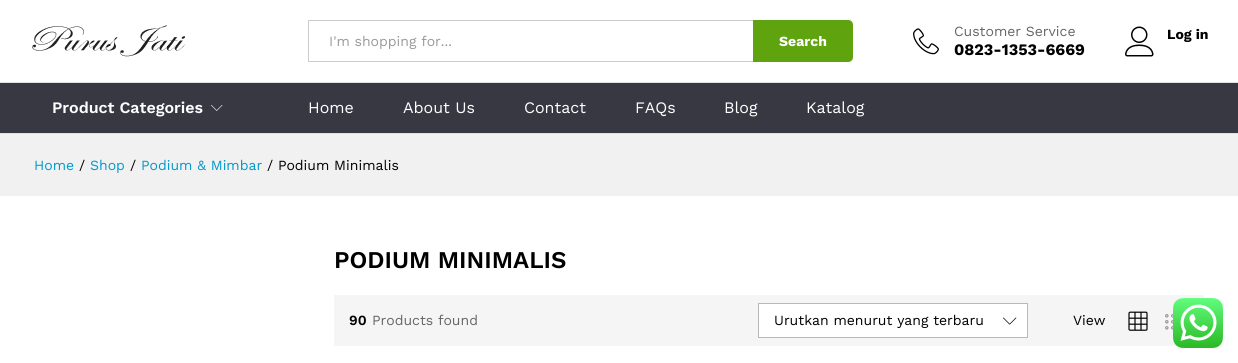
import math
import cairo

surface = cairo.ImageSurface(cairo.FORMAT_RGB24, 1238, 363)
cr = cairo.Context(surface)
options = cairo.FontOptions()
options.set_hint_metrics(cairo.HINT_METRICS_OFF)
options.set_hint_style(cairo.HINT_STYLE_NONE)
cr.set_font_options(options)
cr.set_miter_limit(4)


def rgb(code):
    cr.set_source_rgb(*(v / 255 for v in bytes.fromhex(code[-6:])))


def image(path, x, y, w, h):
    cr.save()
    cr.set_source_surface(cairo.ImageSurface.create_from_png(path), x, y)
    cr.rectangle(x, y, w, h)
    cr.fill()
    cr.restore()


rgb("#ffffff")
cr.paint()
image("img/1.png", 32, 25, 153, 32)
for x, y, w, h, color in [
    (308, 20, 1, 42, "#cccccc"),
    (309, 20, 444, 1, "#cccccc"),
    (309, 61, 444, 1, "#cccccc"),
]:
    rgb(color)
    cr.rectangle(x, y, w, h)
    cr.fill()
rgb("#5fa30f")
cr.new_path()
cr.move_to(753, 20)
cr.line_to(848, 20)
cr.curve_to(851, 20, 853, 22, 853, 25)
cr.line_to(853, 57)
cr.curve_to(853, 60, 851, 62, 848, 62)
cr.line_to(753, 62)
cr.close_path()
cr.fill()
image("img/2.png", 913, 28, 26, 27)
image("img/3.png", 1125, 26, 29, 31)
for x, y, w, h, color in [
    (0, 83, 1238, 50, "#373842"),
    (0, 82, 1238, 1, "#e1e1e1"),
    (0, 133, 1238, 1, "#e1e1e1"),
]:
    rgb(color)
    cr.rectangle(x, y, w, h)
    cr.fill()
image("img/4.png", 211, 105, 12, 6)
rgb("#f1f1f1")
cr.rectangle(0, 134, 1238, 62)
cr.fill()
rgb("#f5f5f5")
cr.rectangle(334, 295, 870, 51)
cr.fill()
rgb("#ffffff")
cr.rectangle(758.5, 303.5, 269, 34)
cr.fill_preserve()
rgb("#b8b8b8")
cr.set_line_width(1)
cr.stroke()
image("img/5.png", 1003, 317, 14, 8)
image("img/6.png", 1128, 311, 20, 20)
image("img/7.png", 1165, 314, 8, 16)
image("img/8.png", 1173, 298, 50, 50)
cr.select_font_face("Work Sans")
cr.set_font_size(14)
rgb("#999999")
cr.move_to(329, 46)
cr.show_text("I'm shopping for...")
cr.select_font_face("Work Sans", cairo.FONT_SLANT_NORMAL, cairo.FONT_WEIGHT_BOLD)
rgb("#ffffff")
cr.move_to(779, 46)
cr.show_text("Search")
cr.select_font_face("Work Sans")
rgb("#666666")
cr.move_to(954, 36)
cr.show_text("Customer Service")
cr.select_font_face("Work Sans", cairo.FONT_SLANT_NORMAL, cairo.FONT_WEIGHT_BOLD)
cr.set_font_size(16)
rgb("#000000")
cr.move_to(954, 55)
cr.show_text("0823-1353-6669")
cr.set_font_size(14)
cr.move_to(1167, 39)
cr.show_text("Log in")
cr.select_font_face("Work Sans SemiBold")
cr.set_font_size(16)
rgb("#ffffff")
cr.move_to(52, 113)
cr.show_text("Product Categories")
cr.select_font_face("Work Sans")
for x, y, s in [
    (308, 113, "Home"),
    (403, 113, "About Us"),
    (524, 113, "Contact"),
    (635, 113, "FAQs"),
    (724, 113, "Blog"),
    (806, 113, "Katalog"),
]:
    cr.move_to(x, y)
    cr.show_text(s)
cr.set_font_size(14)
rgb("#0099cc")
cr.move_to(34, 170)
cr.show_text("Home")
rgb("#000000")
cr.move_to(79, 170)
cr.show_text("/")
rgb("#0099cc")
cr.move_to(90, 170)
cr.show_text("Shop")
rgb("#000000")
cr.move_to(130, 170)
cr.show_text("/")
rgb("#0099cc")
cr.move_to(141, 170)
cr.show_text("Podium & Mimbar")
rgb("#000000")
cr.move_to(267, 170)
cr.show_text("/ Podium Minimalis")
cr.select_font_face("Work Sans SemiBold")
cr.set_font_size(24)
cr.move_to(334, 268)
cr.show_text("PODIUM MINIMALIS")
cr.set_font_size(14)
cr.move_to(349, 325)
cr.show_text("90")
cr.select_font_face("Work Sans")
rgb("#666666")
cr.move_to(372, 325)
cr.show_text("Products found")
rgb("#000000")
cr.move_to(774, 325)
cr.show_text("Urutkan menurut yang terbaru")
cr.move_to(1073, 325)
cr.show_text("View")
surface.write_to_png("page.png")
